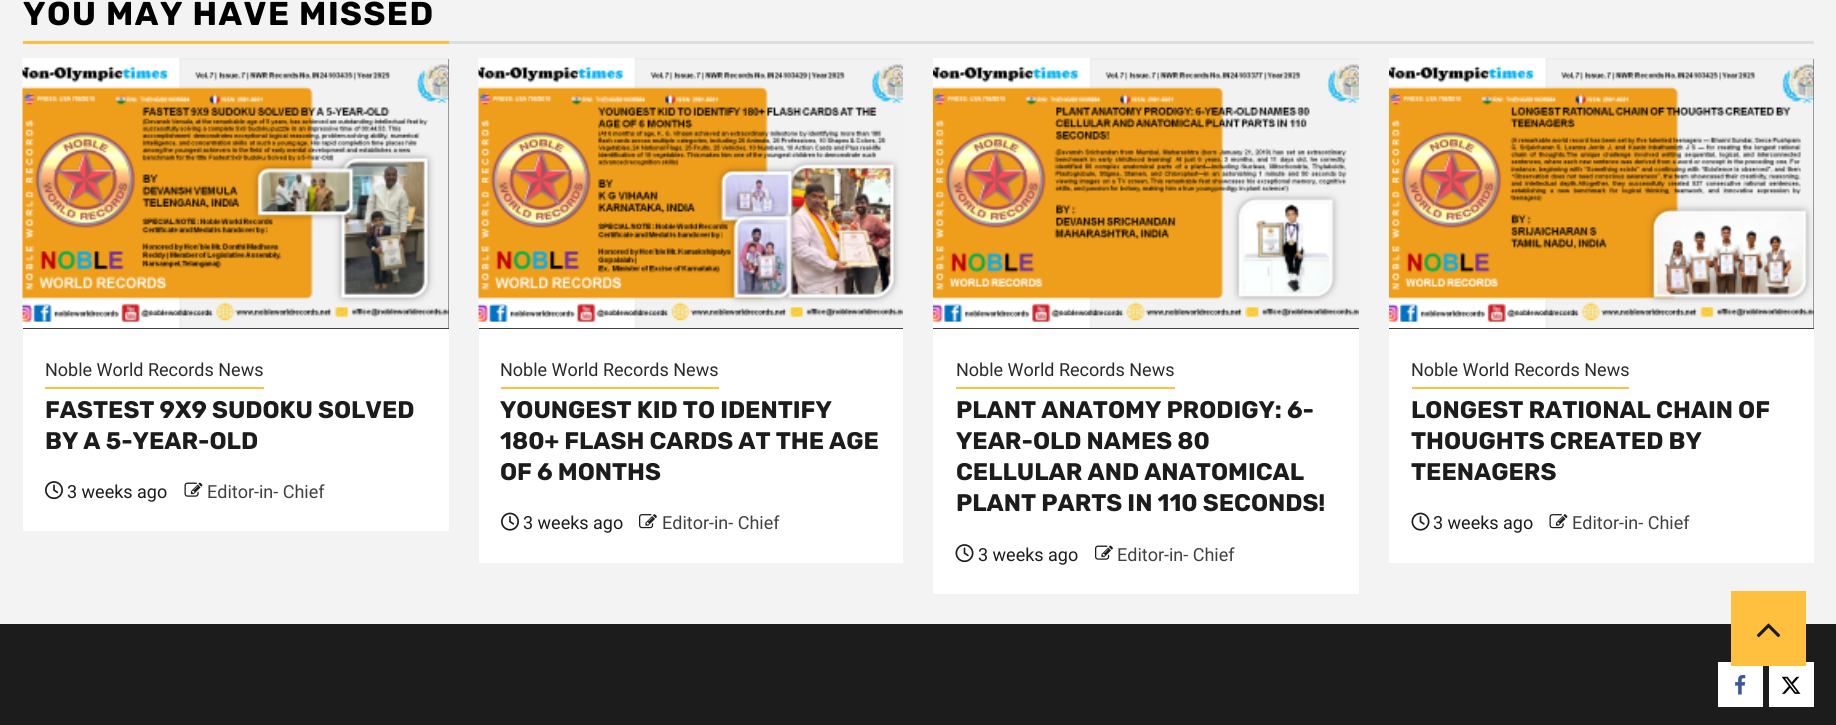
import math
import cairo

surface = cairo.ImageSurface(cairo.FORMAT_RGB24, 1836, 725)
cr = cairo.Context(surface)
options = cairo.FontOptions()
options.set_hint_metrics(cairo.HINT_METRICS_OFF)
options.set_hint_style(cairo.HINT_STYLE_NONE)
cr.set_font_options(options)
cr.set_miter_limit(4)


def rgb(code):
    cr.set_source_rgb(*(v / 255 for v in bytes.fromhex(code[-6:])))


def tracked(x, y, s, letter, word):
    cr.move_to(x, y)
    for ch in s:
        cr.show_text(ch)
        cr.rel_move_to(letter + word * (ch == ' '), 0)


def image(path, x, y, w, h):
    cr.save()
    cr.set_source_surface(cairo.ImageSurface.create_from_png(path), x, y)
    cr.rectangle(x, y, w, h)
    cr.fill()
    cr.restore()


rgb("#f3f3f3")
cr.paint()
for x, y, w, h, color in [
    (23, 41, 426, 3, "#ffbf3f"),
    (449, 41, 1365, 3, "#dedede"),
    (23, 329, 426, 202, "#ffffff"),
    (23, 59, 426, 270, "#404040"),
]:
    rgb(color)
    cr.rectangle(x, y, w, h)
    cr.fill()
image("img/1.png", 22, 58, 427, 270)
rgb("#ffbf3f")
cr.rectangle(45, 387, 219, 2)
cr.fill()
image("img/2.png", 45, 481, 18, 19)
image("img/3.png", 184, 482, 19, 15)
rgb("#ffffff")
cr.rectangle(479, 329, 424, 234)
cr.fill()
rgb("#404040")
cr.rectangle(479, 328, 424, 1)
cr.fill()
image("img/4.png", 478, 58, 425, 270)
rgb("#ffbf3f")
cr.rectangle(501, 387, 218, 2)
cr.fill()
image("img/5.png", 501, 512, 18, 19)
image("img/6.png", 639, 514, 18, 15)
rgb("#ffffff")
cr.rectangle(933, 329, 426, 265)
cr.fill()
rgb("#404040")
cr.rectangle(933, 328, 426, 1)
cr.fill()
image("img/7.png", 933, 58, 426, 270)
rgb("#ffbf3f")
cr.rectangle(956, 387, 219, 2)
cr.fill()
image("img/8.png", 955, 544, 19, 19)
image("img/9.png", 1095, 545, 18, 15)
rgb("#ffffff")
cr.rectangle(1389, 329, 425, 234)
cr.fill()
rgb("#404040")
cr.rectangle(1389, 59, 425, 270)
cr.fill()
image("img/10.png", 1389, 58, 425, 270)
rgb("#ffbf3f")
cr.rectangle(1412, 387, 217, 2)
cr.fill()
image("img/11.png", 1411, 512, 19, 19)
image("img/12.png", 1549, 514, 19, 15)
rgb("#1c1c1c")
cr.rectangle(0, 624, 1836, 101)
cr.fill()
rgb("#ffffff")
cr.rectangle(1718, 662, 45, 45)
cr.fill()
image("img/13.png", 1735, 675, 11, 20)
cr.rectangle(1769, 662, 45, 45)
cr.fill()
image("img/14.png", 1781, 676, 20, 18)
rgb("#ffbf3f")
cr.rectangle(1731, 591, 75, 75)
cr.fill()
image("img/15.png", 1756, 623, 25, 15)
cr.select_font_face("Rubik", cairo.FONT_SLANT_NORMAL, cairo.FONT_WEIGHT_BOLD)
cr.set_font_size(33)
rgb("#000000")
tracked(23, 25, "YOU MAY HAVE MISSED", 1.5, 0)
cr.select_font_face("Roboto")
cr.set_font_size(18)
rgb("#2b2b2b")
cr.move_to(45, 376)
cr.show_text("Noble World Records News")
cr.select_font_face("Rubik", cairo.FONT_SLANT_NORMAL, cairo.FONT_WEIGHT_BOLD)
cr.set_font_size(24)
rgb("#1c1c1c")
cr.move_to(45, 418)
cr.show_text("FASTEST 9X9 SUDOKU SOLVED")
cr.move_to(45, 449)
cr.show_text("BY A 5-YEAR-OLD")
cr.select_font_face("Roboto")
cr.set_font_size(18)
cr.move_to(67, 498)
cr.show_text("3 weeks ago")
rgb("#404040")
cr.move_to(207, 498)
cr.show_text("Editor-in- Chief")
rgb("#2b2b2b")
cr.move_to(500, 376)
cr.show_text("Noble World Records News")
cr.select_font_face("Rubik", cairo.FONT_SLANT_NORMAL, cairo.FONT_WEIGHT_BOLD)
cr.set_font_size(24)
rgb("#1c1c1c")
for x, y, s in [
    (500, 418, "YOUNGEST KID TO IDENTIFY"),
    (500, 449, "180+ FLASH CARDS AT THE AGE"),
    (500, 480, "OF 6 MONTHS"),
]:
    cr.move_to(x, y)
    cr.show_text(s)
cr.select_font_face("Roboto")
cr.set_font_size(18)
cr.move_to(523, 529)
cr.show_text("3 weeks ago")
rgb("#404040")
cr.move_to(662, 529)
cr.show_text("Editor-in- Chief")
rgb("#2b2b2b")
cr.move_to(956, 376)
cr.show_text("Noble World Records News")
cr.select_font_face("Rubik", cairo.FONT_SLANT_NORMAL, cairo.FONT_WEIGHT_BOLD)
cr.set_font_size(24)
rgb("#1c1c1c")
for x, y, s in [
    (956, 418, "PLANT ANATOMY PRODIGY: 6-"),
    (956, 449, "YEAR-OLD NAMES 80"),
    (956, 480, "CELLULAR AND ANATOMICAL"),
    (956, 511, "PLANT PARTS IN 110 SECONDS!"),
]:
    cr.move_to(x, y)
    cr.show_text(s)
cr.select_font_face("Roboto")
cr.set_font_size(18)
cr.move_to(978, 561)
cr.show_text("3 weeks ago")
rgb("#404040")
cr.move_to(1117, 561)
cr.show_text("Editor-in- Chief")
rgb("#2b2b2b")
cr.move_to(1411, 376)
cr.show_text("Noble World Records News")
cr.select_font_face("Rubik", cairo.FONT_SLANT_NORMAL, cairo.FONT_WEIGHT_BOLD)
cr.set_font_size(24)
rgb("#1c1c1c")
for x, y, s in [
    (1411, 418, "LONGEST RATIONAL CHAIN OF"),
    (1411, 449, "THOUGHTS CREATED BY"),
    (1411, 480, "TEENAGERS"),
]:
    cr.move_to(x, y)
    cr.show_text(s)
cr.select_font_face("Roboto")
cr.set_font_size(18)
cr.move_to(1433, 529)
cr.show_text("3 weeks ago")
rgb("#404040")
cr.move_to(1572, 529)
cr.show_text("Editor-in- Chief")
surface.write_to_png("page.png")
